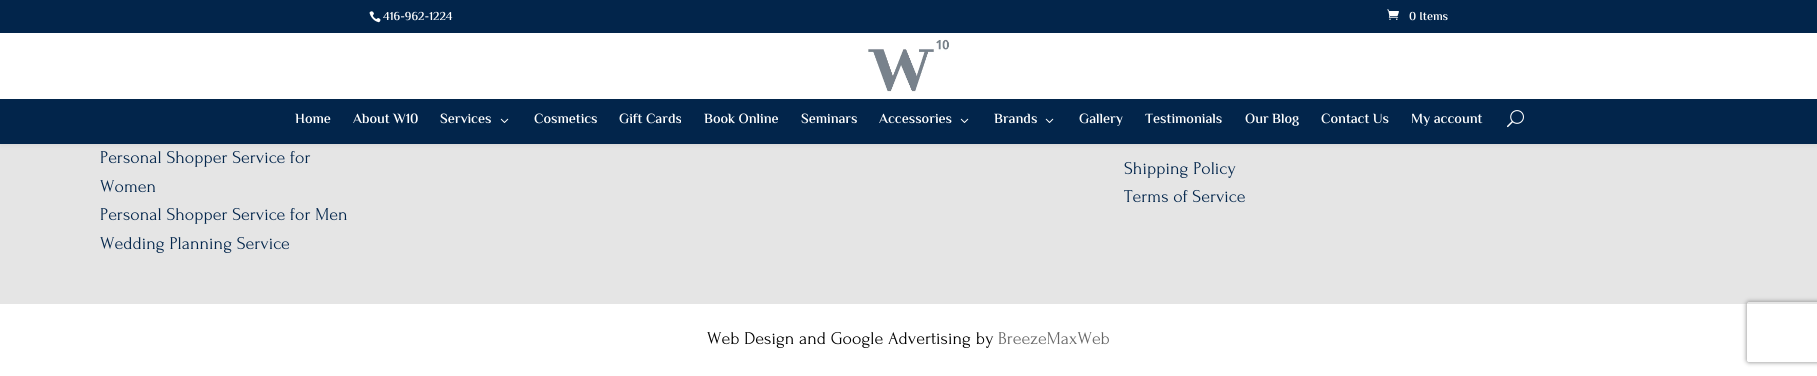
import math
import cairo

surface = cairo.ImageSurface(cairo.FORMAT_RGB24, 1817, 376)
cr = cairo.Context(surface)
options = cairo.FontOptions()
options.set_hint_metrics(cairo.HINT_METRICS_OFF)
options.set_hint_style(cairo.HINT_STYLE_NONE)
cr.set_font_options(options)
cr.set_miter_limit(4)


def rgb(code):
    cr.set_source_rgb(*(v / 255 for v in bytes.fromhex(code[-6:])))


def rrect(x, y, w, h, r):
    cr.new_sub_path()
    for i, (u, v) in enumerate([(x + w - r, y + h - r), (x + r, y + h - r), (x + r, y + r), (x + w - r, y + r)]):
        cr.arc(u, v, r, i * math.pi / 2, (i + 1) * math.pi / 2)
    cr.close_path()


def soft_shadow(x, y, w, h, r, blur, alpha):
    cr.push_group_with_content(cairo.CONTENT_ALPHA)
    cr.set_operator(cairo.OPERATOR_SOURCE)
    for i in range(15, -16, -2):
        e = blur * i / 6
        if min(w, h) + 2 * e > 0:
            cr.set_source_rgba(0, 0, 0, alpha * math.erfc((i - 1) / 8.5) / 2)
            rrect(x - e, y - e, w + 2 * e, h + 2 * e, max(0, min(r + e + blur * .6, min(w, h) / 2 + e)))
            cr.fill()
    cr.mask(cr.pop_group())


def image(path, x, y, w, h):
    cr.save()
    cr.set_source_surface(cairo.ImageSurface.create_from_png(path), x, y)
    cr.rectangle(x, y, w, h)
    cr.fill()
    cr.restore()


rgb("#ffffff")
cr.paint()
rgb("#e5e5e5")
cr.rectangle(0, 144, 1817, 160)
cr.fill()
rgb("#000000")
soft_shadow(0, 33, 1817, 111, 0, 3.5, 0.1)
rgb("#02254b")
cr.rectangle(0, 0, 1817, 33)
cr.fill()
image("img/1.png", 369, 11, 12, 12)
image("img/2.png", 1387, 9, 12, 11)
rgb("#ffffff")
cr.rectangle(0, 33, 1817, 66)
cr.fill()
image("img/3.png", 868, 39, 81, 53)
rgb("#02254b")
cr.rectangle(0, 99, 1817, 45)
cr.fill()
image("img/4.png", 500, 118, 9, 5)
image("img/4.png", 960, 118, 9, 5)
image("img/4.png", 1045, 118, 9, 5)
image("img/5.png", 1507, 110, 17, 18)
cr.save()
cr.set_fill_rule(cairo.FILL_RULE_EVEN_ODD)
cr.new_path()
cr.move_to(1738, 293)
cr.line_to(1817, 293)
cr.line_to(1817, 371)
cr.line_to(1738, 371)
cr.close_path()
cr.move_to(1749, 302)
cr.line_to(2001, 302)
cr.curve_to(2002, 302, 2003, 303, 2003, 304)
cr.line_to(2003, 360)
cr.curve_to(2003, 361, 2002, 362, 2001, 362)
cr.line_to(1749, 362)
cr.curve_to(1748, 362, 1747, 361, 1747, 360)
cr.line_to(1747, 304)
cr.curve_to(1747, 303, 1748, 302, 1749, 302)
cr.close_path()
cr.clip()
rgb("#808080")
soft_shadow(1747, 302, 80, 60, 2, 2.5, 1)
cr.restore()
cr.select_font_face("El Messiri SemiBold")
cr.set_font_size(12)
rgb("#ffffff")
cr.move_to(383, 20)
cr.show_text("416-962-1224")
cr.move_to(1409, 20)
cr.show_text("0 Items")
cr.set_font_size(14)
for x, y, s in [
    (295, 123, "Home"),
    (353, 123, "About W10"),
    (440, 123, "Services"),
    (534, 123, "Cosmetics"),
    (619, 123, "Gift Cards"),
    (704, 123, "Book Online"),
    (801, 123, "Seminars"),
    (879, 123, "Accessories"),
    (994, 123, "Brands"),
    (1079, 123, "Gallery"),
    (1145, 123, "Testimonials"),
    (1245, 123, "Our Blog"),
    (1321, 123, "Contact Us"),
    (1411, 123, "My account"),
]:
    cr.move_to(x, y)
    cr.show_text(s)
cr.select_font_face("Forum")
cr.set_font_size(18)
rgb("#02254b")
for x, y, s in [
    (100, 163, "Personal Shopper Service for"),
    (100, 192, "Women"),
    (100, 220, "Personal Shopper Service for Men"),
    (100, 249, "Wedding Planning Service"),
    (1124, 174, "Shipping Policy"),
    (1124, 202, "Terms of Service"),
]:
    cr.move_to(x, y)
    cr.show_text(s)
rgb("#000000")
cr.move_to(707, 344)
cr.show_text("Web Design and Google Advertising by")
rgb("#666666")
cr.move_to(998, 344)
cr.show_text("BreezeMaxWeb")
surface.write_to_png("page.png")
